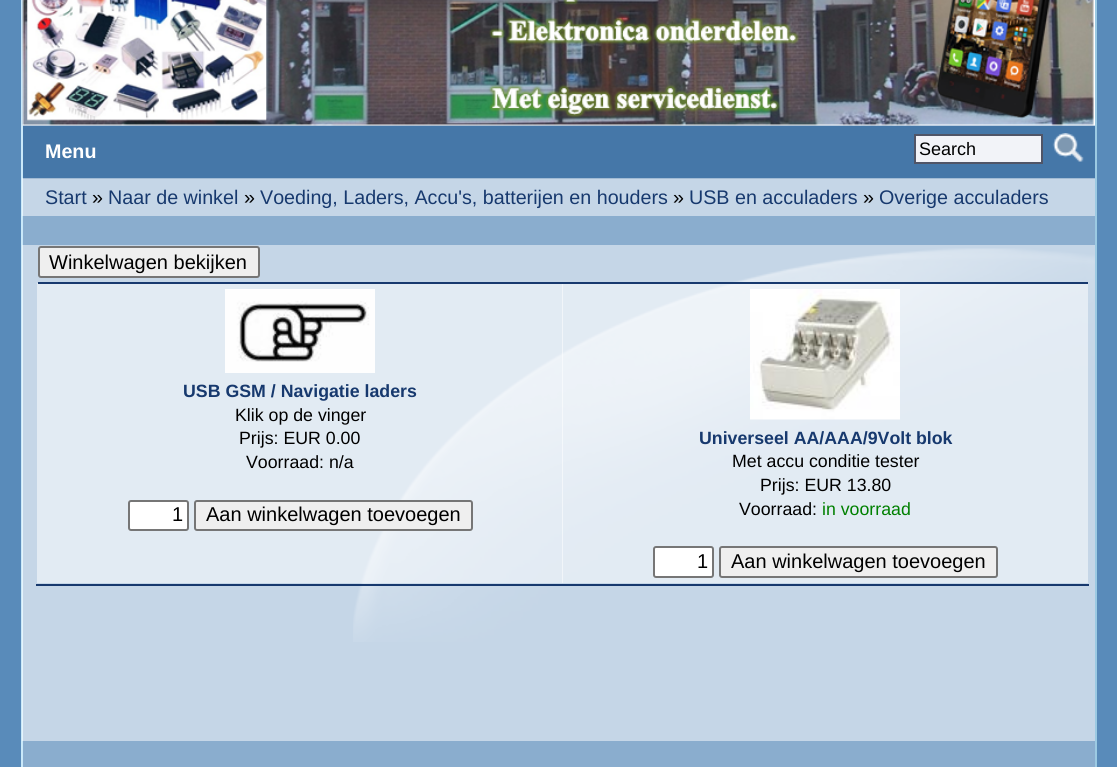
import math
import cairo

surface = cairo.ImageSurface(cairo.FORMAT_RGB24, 1117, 767)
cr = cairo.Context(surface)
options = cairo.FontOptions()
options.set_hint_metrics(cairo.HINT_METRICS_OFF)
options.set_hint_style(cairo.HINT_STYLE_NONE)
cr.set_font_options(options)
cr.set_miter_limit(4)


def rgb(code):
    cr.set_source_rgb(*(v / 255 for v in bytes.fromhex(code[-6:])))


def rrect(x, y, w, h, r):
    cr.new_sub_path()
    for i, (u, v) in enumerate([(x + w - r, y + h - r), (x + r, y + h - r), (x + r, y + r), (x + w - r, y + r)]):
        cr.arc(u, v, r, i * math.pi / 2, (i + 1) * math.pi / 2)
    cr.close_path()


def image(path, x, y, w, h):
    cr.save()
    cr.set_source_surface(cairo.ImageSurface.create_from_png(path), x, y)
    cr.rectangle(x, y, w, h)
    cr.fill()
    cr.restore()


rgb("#598bba")
cr.paint()
for x, y, w, h, color in [
    (23, 125, 1072, 642, "#8aadce"),
    (23, 245, 1072, 496, "#c5d6e7"),
    (23, 179, 1072, 37, "#c5d6e7"),
    (1095, 0, 2, 767, "#9ccae3"),
    (21, 0, 2, 767, "#c9e8f9"),
    (22, 245, 1, 496, "#e4f4fc"),
    (22, 178, 1, 38, "#e4f4fc"),
]:
    rgb(color)
    cr.rectangle(x, y, w, h)
    cr.fill()
image("img/1.png", 22, 0, 1, 5)
image("img/2.png", 22, 0, 1073, 126)
rgb("#4577a8")
cr.rectangle(23, 126, 1072, 52)
cr.fill()
rgb("#a2bbd4")
cr.rectangle(23, 178, 1072, 1)
cr.fill()
rgb("#f2f3f8")
cr.rectangle(915, 135, 127, 28)
cr.fill_preserve()
rgb("#505567")
cr.stroke()
image("img/3.png", 1052, 133, 32, 29)
image("img/4.png", 353, 248, 742, 394)
rgb("#efefef")
rrect(39, 247, 220, 30, 2)
cr.fill_preserve()
rgb("#767676")
cr.stroke()
cr.set_source_rgba(1, 1, 1, 0.5)
cr.rectangle(37, 283, 526, 300)
cr.fill()
rgb("#17396e")
cr.rectangle(38, 282, 1050, 2)
cr.fill()
image("img/5.png", 225, 289, 150, 84)
rgb("#ffffff")
rrect(129, 501, 59, 29, 2)
cr.fill_preserve()
rgb("#767676")
cr.stroke()
rgb("#efefef")
rrect(195, 501, 277, 29, 2)
cr.fill_preserve()
rgb("#767676")
cr.stroke()
cr.set_source_rgba(1, 1, 1, 0.5)
cr.rectangle(562, 284, 526, 299)
cr.fill()
rgb("#17396e")
cr.rectangle(36, 584, 1053, 2)
cr.fill()
image("img/6.png", 750, 289, 150, 131)
rgb("#ffffff")
rrect(654, 547, 59, 30, 2)
cr.fill_preserve()
rgb("#767676")
cr.stroke()
rgb("#efefef")
rrect(720, 547, 277, 30, 2)
cr.fill_preserve()
rgb("#767676")
cr.stroke()
cr.select_font_face("Liberation Sans", cairo.FONT_SLANT_NORMAL, cairo.FONT_WEIGHT_BOLD)
cr.set_font_size(19.7)
rgb("#ffffff")
cr.move_to(45, 158)
cr.show_text("Menu")
cr.select_font_face("Liberation Sans")
cr.set_font_size(18)
rgb("#000000")
cr.move_to(919, 155)
cr.show_text("Search")
cr.set_font_size(19.7)
rgb("#17396e")
cr.move_to(45, 204)
cr.show_text("Start")
rgb("#000000")
cr.move_to(92, 204)
cr.show_text("»")
rgb("#17396e")
cr.move_to(108, 204)
cr.show_text("Naar de winkel")
rgb("#000000")
cr.move_to(244, 204)
cr.show_text("»")
rgb("#17396e")
cr.move_to(260, 204)
cr.show_text("Voeding, Laders, Accu's, batterijen en houders")
rgb("#000000")
cr.move_to(673, 204)
cr.show_text("»")
rgb("#17396e")
cr.move_to(689, 204)
cr.show_text("USB en acculaders")
rgb("#000000")
cr.move_to(863, 204)
cr.show_text("»")
rgb("#17396e")
cr.move_to(879, 204)
cr.show_text("Overige acculaders")
cr.set_font_size(20)
rgb("#000000")
cr.move_to(49, 269)
cr.show_text("Winkelwagen bekijken")
cr.select_font_face("Liberation Sans", cairo.FONT_SLANT_NORMAL, cairo.FONT_WEIGHT_BOLD)
cr.set_font_size(17.75)
rgb("#17396e")
cr.move_to(183, 397)
cr.show_text("USB GSM / Navigatie laders")
cr.select_font_face("Liberation Sans")
rgb("#000000")
for x, y, s in [
    (235, 421, "Klik op de vinger"),
    (239, 444, "Prijs: EUR 0.00"),
    (246, 468, "Voorraad: n/a"),
]:
    cr.move_to(x, y)
    cr.show_text(s)
cr.set_font_size(20)
cr.move_to(172, 521)
cr.show_text("1")
cr.move_to(206, 521)
cr.show_text("Aan winkelwagen toevoegen")
cr.select_font_face("Liberation Sans", cairo.FONT_SLANT_NORMAL, cairo.FONT_WEIGHT_BOLD)
cr.set_font_size(17.75)
rgb("#17396e")
cr.move_to(699, 444)
cr.show_text("Universeel AA/AAA/9Volt blok")
cr.select_font_face("Liberation Sans")
rgb("#000000")
for x, y, s in [
    (732, 467, "Met accu conditie tester"),
    (760, 491, "Prijs: EUR 13.80"),
    (739, 515, "Voorraad:"),
]:
    cr.move_to(x, y)
    cr.show_text(s)
rgb("#008000")
cr.move_to(822, 515)
cr.show_text("in voorraad")
cr.set_font_size(20)
rgb("#000000")
cr.move_to(697, 568)
cr.show_text("1")
cr.move_to(731, 568)
cr.show_text("Aan winkelwagen toevoegen")
surface.write_to_png("page.png")
